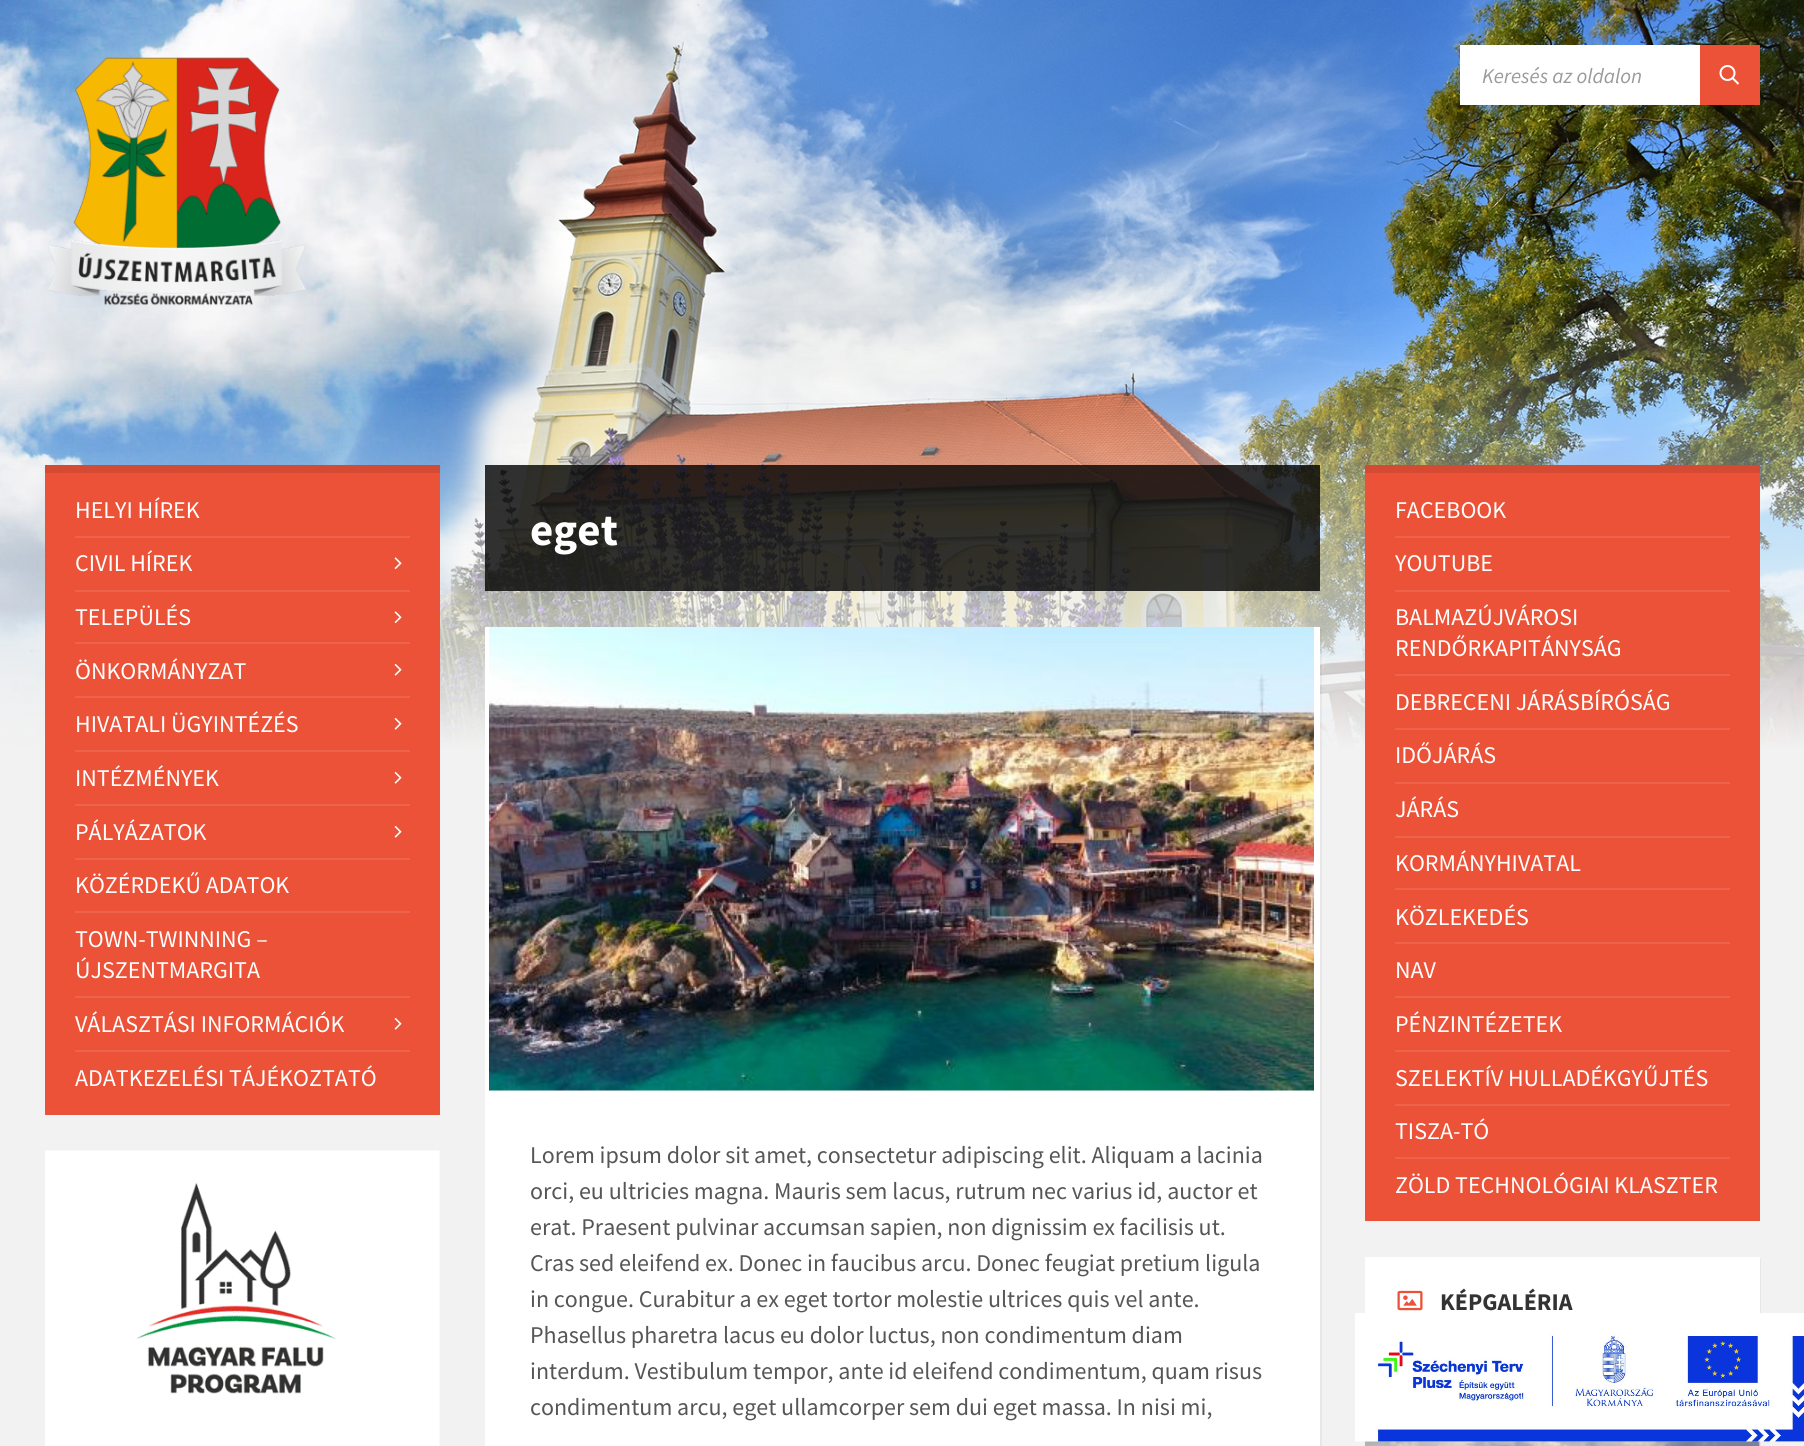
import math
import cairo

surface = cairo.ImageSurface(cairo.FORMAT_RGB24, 1804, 1446)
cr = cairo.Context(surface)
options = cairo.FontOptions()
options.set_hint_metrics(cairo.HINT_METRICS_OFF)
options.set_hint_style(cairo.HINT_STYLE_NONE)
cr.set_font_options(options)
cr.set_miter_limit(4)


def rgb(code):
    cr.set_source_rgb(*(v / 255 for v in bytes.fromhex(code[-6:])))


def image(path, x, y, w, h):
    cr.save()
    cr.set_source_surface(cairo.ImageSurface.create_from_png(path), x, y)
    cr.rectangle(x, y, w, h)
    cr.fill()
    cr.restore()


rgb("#f2f2f2")
cr.paint()
image("img/1.png", 0, 0, 1804, 750)
image("img/2.png", 48, 57, 258, 249)
rgb("#ffffff")
cr.rectangle(1460, 45, 240, 60)
cr.fill()
rgb("#ec5237")
cr.rectangle(1700, 45, 60, 60)
cr.fill()
image("img/3.png", 1719, 65, 21, 20)
for x, y, w, h, color in [
    (45, 473, 395, 642, "#ec5237"),
    (45, 465, 395, 8, "#d44a32"),
    (75, 536, 335, 2, "#ee634b"),
]:
    rgb(color)
    cr.rectangle(x, y, w, h)
    cr.fill()
image("img/4.png", 394, 557, 8, 13)
cr.rectangle(75, 590, 335, 2)
cr.fill()
image("img/4.png", 394, 611, 8, 13)
cr.rectangle(75, 642, 335, 2)
cr.fill()
image("img/5.png", 394, 663, 8, 13)
cr.rectangle(75, 696, 335, 2)
cr.fill()
image("img/5.png", 394, 717, 8, 13)
cr.rectangle(75, 750, 335, 2)
cr.fill()
image("img/5.png", 394, 771, 8, 13)
cr.rectangle(75, 804, 335, 2)
cr.fill()
image("img/5.png", 394, 825, 8, 13)
for x, y, w, h, color in [
    (75, 858, 335, 2, "#ee634b"),
    (75, 911, 335, 2, "#ee634b"),
    (75, 996, 335, 2, "#ee634b"),
]:
    rgb(color)
    cr.rectangle(x, y, w, h)
    cr.fill()
image("img/5.png", 394, 1017, 8, 13)
cr.rectangle(75, 1050, 335, 2)
cr.fill()
image("img/6.png", 45, 1150, 395, 296)
cr.set_source_rgba(0, 0, 0, 0.8)
cr.rectangle(485, 465, 835, 126)
cr.fill()
cr.set_source_rgba(0, 0, 0, 0.05)
cr.new_path()
cr.move_to(486, 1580)
cr.line_to(486, 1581)
cr.line_to(1322, 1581)
cr.line_to(1322, 629)
cr.line_to(1320, 629)
cr.line_to(1320, 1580)
cr.close_path()
cr.fill()
rgb("#ffffff")
cr.rectangle(485, 627, 835, 819)
cr.fill()
image("img/7.png", 489, 627, 825, 464)
rgb("#e6e6e6")
cr.new_path()
cr.move_to(1367, 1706)
cr.line_to(1367, 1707)
cr.line_to(1761, 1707)
cr.line_to(1761, 1259)
cr.line_to(1760, 1259)
cr.line_to(1760, 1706)
cr.close_path()
cr.fill()
rgb("#ffffff")
cr.rectangle(1365, 1257, 395, 189)
cr.fill()
image("img/10.png", 1365, 1441, 395, 5)
image("img/8.png", 1355, 1313, 449, 129)
for x, y, w, h, color in [
    (1365, 473, 395, 748, "#ec5237"),
    (1365, 465, 395, 8, "#d44a32"),
    (1395, 536, 335, 2, "#ee634b"),
    (1395, 590, 335, 2, "#ee634b"),
    (1395, 674, 335, 2, "#ee634b"),
    (1395, 728, 335, 2, "#ee634b"),
    (1395, 782, 335, 2, "#ee634b"),
    (1395, 836, 335, 2, "#ee634b"),
    (1395, 888, 335, 2, "#ee634b"),
    (1395, 942, 335, 2, "#ee634b"),
    (1395, 996, 335, 2, "#ee634b"),
    (1395, 1050, 335, 2, "#ee634b"),
    (1395, 1104, 335, 2, "#ee634b"),
    (1395, 1157, 335, 2, "#ee634b"),
]:
    rgb(color)
    cr.rectangle(x, y, w, h)
    cr.fill()
image("img/9.png", 1397, 1290, 26, 21)
cr.select_font_face("Source Sans Pro", cairo.FONT_SLANT_ITALIC)
cr.set_font_size(21)
rgb("#9a9a9a")
cr.move_to(1482, 83)
cr.show_text("Keresés az oldalon")
cr.select_font_face("Source Sans Pro")
cr.set_font_size(24)
rgb("#ffffff")
for x, y, s in [
    (75, 518, "HELYI HÍREK"),
    (75, 571, "CIVIL HÍREK"),
    (75, 625, "TELEPÜLÉS"),
    (75, 679, "ÖNKORMÁNYZAT"),
    (75, 732, "HIVATALI ÜGYINTÉZÉS"),
    (75, 786, "INTÉZMÉNYEK"),
    (75, 840, "PÁLYÁZATOK"),
    (75, 893, "KÖZÉRDEKŰ ADATOK"),
    (75, 947, "TOWN-TWINNING –"),
    (75, 978, "ÚJSZENTMARGITA"),
    (75, 1032, "VÁLASZTÁSI INFORMÁCIÓK"),
    (75, 1086, "ADATKEZELÉSI TÁJÉKOZTATÓ"),
]:
    cr.move_to(x, y)
    cr.show_text(s)
cr.select_font_face("Source Sans Pro", cairo.FONT_SLANT_NORMAL, cairo.FONT_WEIGHT_BOLD)
cr.set_font_size(45)
cr.move_to(530, 545)
cr.show_text("eget")
cr.select_font_face("Source Sans Pro")
cr.set_font_size(24)
rgb("#565656")
for x, y, s in [
    (530, 1163, "Lorem ipsum dolor sit amet, consectetur adipiscing elit. Aliquam a lacinia"),
    (530, 1199, "orci, eu ultricies magna. Mauris sem lacus, rutrum nec varius id, auctor et"),
    (530, 1235, "erat. Praesent pulvinar accumsan sapien, non dignissim ex facilisis ut."),
    (530, 1271, "Cras sed eleifend ex. Donec in faucibus arcu. Donec feugiat pretium ligula"),
    (530, 1307, "in congue. Curabitur a ex eget tortor molestie ultrices quis vel ante."),
    (530, 1343, "Phasellus pharetra lacus eu dolor luctus, non condimentum diam"),
    (530, 1379, "interdum. Vestibulum tempor, ante id eleifend condimentum, quam risus"),
    (530, 1415, "condimentum arcu, eget ullamcorper sem dui eget massa. In nisi mi,"),
]:
    cr.move_to(x, y)
    cr.show_text(s)
rgb("#ffffff")
for x, y, s in [
    (1395, 518, "FACEBOOK"),
    (1395, 571, "YOUTUBE"),
    (1395, 625, "BALMAZÚJVÁROSI"),
    (1395, 656, "RENDŐRKAPITÁNYSÁG"),
    (1395, 710, "DEBRECENI JÁRÁSBÍRÓSÁG"),
    (1395, 763, "IDŐJÁRÁS"),
    (1395, 817, "JÁRÁS"),
    (1395, 871, "KORMÁNYHIVATAL"),
    (1395, 925, "KÖZLEKEDÉS"),
    (1395, 978, "NAV"),
    (1395, 1032, "PÉNZINTÉZETEK"),
    (1395, 1086, "SZELEKTÍV HULLADÉKGYŰJTÉS"),
    (1395, 1139, "TISZA-TÓ"),
    (1395, 1193, "ZÖLD TECHNOLÓGIAI KLASZTER"),
]:
    cr.move_to(x, y)
    cr.show_text(s)
cr.select_font_face("Source Sans Pro", cairo.FONT_SLANT_NORMAL, cairo.FONT_WEIGHT_BOLD)
rgb("#333333")
cr.move_to(1440, 1310)
cr.show_text("KÉPGALÉRIA")
surface.write_to_png("page.png")
